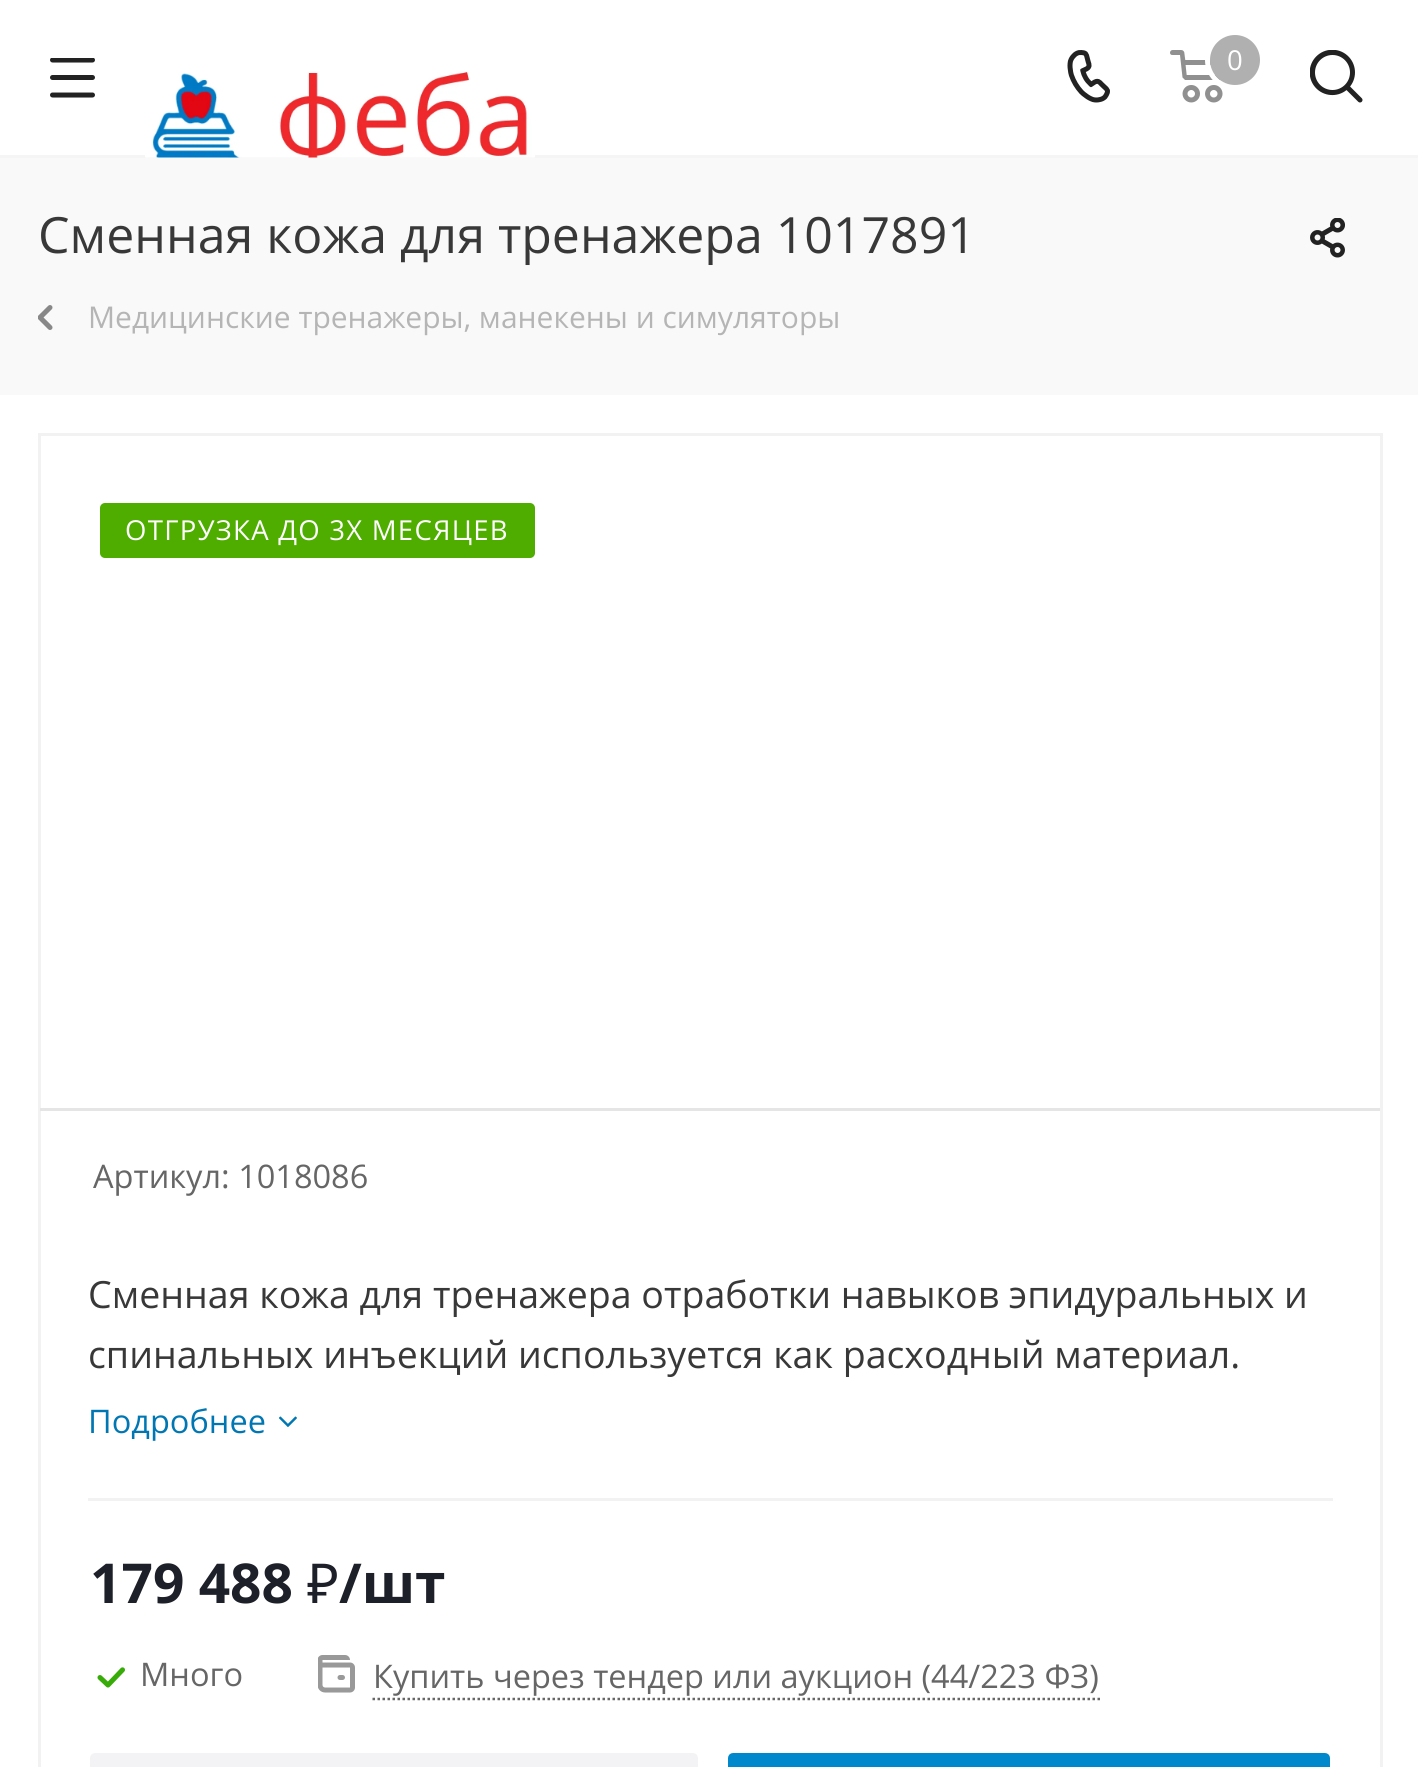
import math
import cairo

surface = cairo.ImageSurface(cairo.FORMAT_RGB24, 1418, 1767)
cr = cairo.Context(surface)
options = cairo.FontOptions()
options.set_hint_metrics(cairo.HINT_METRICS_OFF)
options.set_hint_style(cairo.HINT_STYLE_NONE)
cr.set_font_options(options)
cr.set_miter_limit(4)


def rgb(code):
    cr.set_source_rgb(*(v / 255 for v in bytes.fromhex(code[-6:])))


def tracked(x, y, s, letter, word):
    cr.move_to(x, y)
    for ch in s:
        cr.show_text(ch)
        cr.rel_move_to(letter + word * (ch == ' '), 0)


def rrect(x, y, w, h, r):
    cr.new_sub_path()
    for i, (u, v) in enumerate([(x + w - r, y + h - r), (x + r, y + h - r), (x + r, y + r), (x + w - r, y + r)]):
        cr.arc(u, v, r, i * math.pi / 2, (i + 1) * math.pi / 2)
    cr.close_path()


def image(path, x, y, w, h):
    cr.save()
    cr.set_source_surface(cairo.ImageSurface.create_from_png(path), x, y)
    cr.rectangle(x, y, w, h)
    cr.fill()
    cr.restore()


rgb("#ffffff")
cr.paint()
rgb("#f5f5f5")
cr.rectangle(0, 155, 1418, 3)
cr.fill()
image("img/1.png", 50, 58, 45, 40)
image("img/2.png", 145, 71, 390, 87)
image("img/3.png", 1067, 50, 43, 53)
image("img/4.png", 1170, 50, 53, 53)
cr.arc(1235, 60, 27.5, 0, 2 * math.pi)
rgb("#ffffff")
cr.set_line_width(5)
cr.stroke()
rgb("#b0b0b0")
cr.arc(1235, 60, 25, 0, 2 * math.pi)
cr.fill()
image("img/5.png", 1310, 50, 53, 53)
rgb("#f9f9f9")
cr.rectangle(0, 158, 1418, 237)
cr.fill()
image("img/6.png", 1310, 218, 35, 40)
image("img/7.png", 38, 305, 15, 25)
cr.rectangle(39.5, 434.5, 1342, 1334)
rgb("#f2f2f2")
cr.set_line_width(3)
cr.stroke()
rgb("#4fad00")
rrect(100, 503, 435, 55, 5)
cr.fill()
rgb("#e5e5e5")
cr.rectangle(40, 1108, 1340, 3)
cr.fill()
rgb("#f2f2f2")
cr.rectangle(88, 1498, 1245, 3)
cr.fill()
image("img/8.png", 279, 1416, 18, 11)
image("img/9.png", 97, 1667, 28, 21)
image("img/10.png", 318, 1655, 37, 38)
cr.new_path()
cr.move_to(372.5, 1699)
cr.line_to(1100, 1699)
rgb("#666666")
cr.set_line_width(2.5)
cr.set_dash([2.5, 2.5])
cr.stroke()
rgb("#f3f3f5")
rrect(91.5, 1754.5, 605, 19, 3.5)
cr.fill_preserve()
cr.set_line_width(3)
cr.set_dash([])
cr.stroke()
rgb("#0088cc")
rrect(729.5, 1754.5, 599, 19, 3.5)
cr.fill_preserve()
cr.stroke()
cr.select_font_face("Open Sans")
cr.set_font_size(27.5)
rgb("#ffffff")
cr.move_to(1227, 70)
cr.show_text("0")
cr.set_font_size(50)
rgb("#383838")
cr.move_to(38, 253)
cr.show_text("Сменная кожа для тренажера 1017891")
cr.set_font_size(30)
rgb("#b6b5b5")
cr.move_to(88, 328)
cr.show_text("Медицинские тренажеры, манекены и симуляторы")
cr.set_font_size(27.5)
rgb("#ffffff")
tracked(125, 540, "ОТГРУЗКА ДО 3Х МЕСЯЦЕВ", 1.25, 0)
cr.set_font_size(32.5)
rgb("#666666")
cr.move_to(93, 1188)
cr.show_text("Артикул: 1018086")
cr.set_font_size(37.5)
rgb("#383838")
cr.move_to(88, 1308)
cr.show_text("Сменная кожа для тренажера отработки навыков эпидуральных и")
cr.move_to(88, 1368)
cr.show_text("спинальных инъекций используется как расходный материал.")
cr.set_font_size(32.5)
rgb("#0077b3")
cr.move_to(88, 1433)
cr.show_text("Подробнее")
cr.select_font_face("Open Sans", cairo.FONT_SLANT_NORMAL, cairo.FONT_WEIGHT_BOLD)
cr.set_font_size(55)
rgb("#1d2029")
cr.move_to(90, 1603)
cr.show_text("179 488")
cr.select_font_face("Noto Sans")
cr.move_to(307, 1603)
cr.show_text("₽")
cr.select_font_face("Open Sans", cairo.FONT_SLANT_NORMAL, cairo.FONT_WEIGHT_BOLD)
cr.move_to(339, 1603)
cr.show_text("/шт")
cr.select_font_face("Open Sans")
cr.set_font_size(32.5)
rgb("#666666")
cr.move_to(140, 1686)
cr.show_text("Много")
cr.move_to(373, 1688)
cr.show_text("Купить через тендер или аукцион (44/223 ФЗ)")
surface.write_to_png("page.png")
